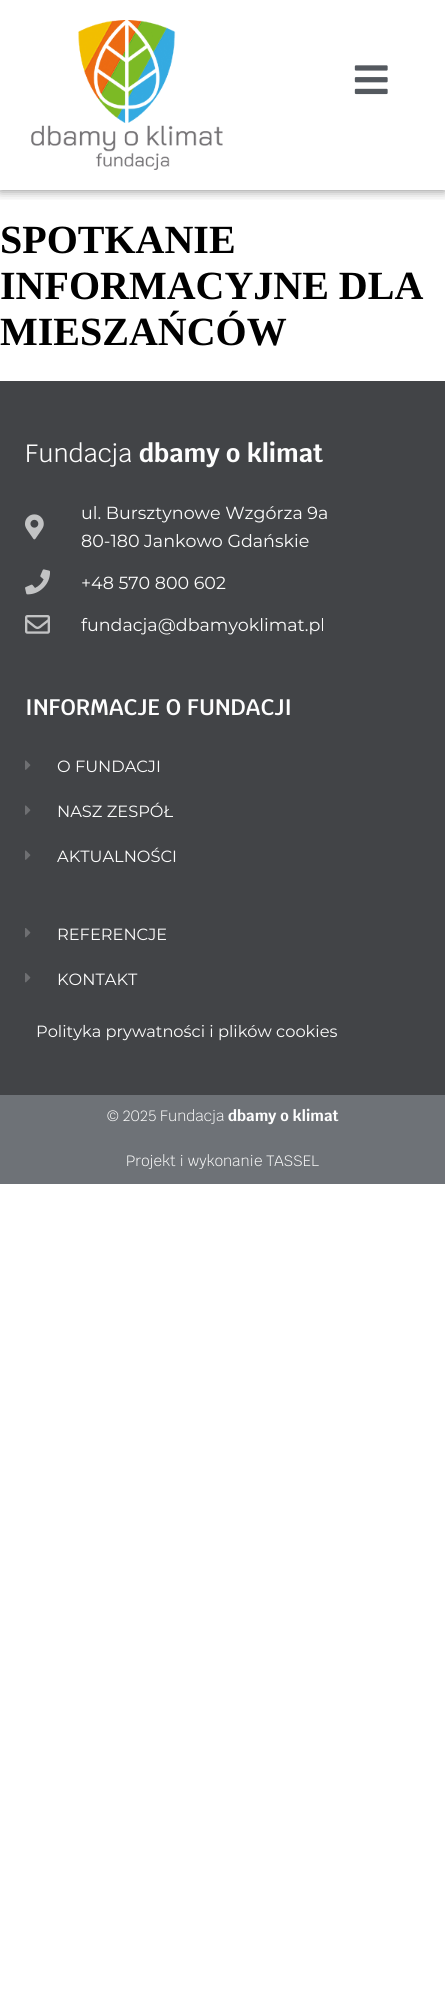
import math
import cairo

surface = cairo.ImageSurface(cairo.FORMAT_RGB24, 445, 2016)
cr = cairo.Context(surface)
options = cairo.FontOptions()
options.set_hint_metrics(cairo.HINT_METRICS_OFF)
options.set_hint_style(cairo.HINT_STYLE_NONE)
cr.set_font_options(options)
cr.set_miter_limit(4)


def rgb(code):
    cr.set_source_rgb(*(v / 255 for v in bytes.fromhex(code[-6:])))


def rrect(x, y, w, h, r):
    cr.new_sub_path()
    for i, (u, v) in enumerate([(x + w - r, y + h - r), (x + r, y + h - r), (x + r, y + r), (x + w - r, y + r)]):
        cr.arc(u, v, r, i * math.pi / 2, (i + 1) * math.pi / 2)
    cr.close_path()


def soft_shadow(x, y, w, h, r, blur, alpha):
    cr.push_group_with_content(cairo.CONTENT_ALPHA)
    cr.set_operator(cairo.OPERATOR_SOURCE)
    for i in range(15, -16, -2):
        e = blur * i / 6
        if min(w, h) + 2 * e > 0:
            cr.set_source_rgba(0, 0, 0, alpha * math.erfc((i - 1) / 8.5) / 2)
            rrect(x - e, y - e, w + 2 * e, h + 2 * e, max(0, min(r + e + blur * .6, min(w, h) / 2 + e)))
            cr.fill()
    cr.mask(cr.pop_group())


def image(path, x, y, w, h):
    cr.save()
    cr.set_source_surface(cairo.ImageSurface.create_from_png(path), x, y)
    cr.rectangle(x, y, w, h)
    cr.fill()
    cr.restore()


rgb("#ffffff")
cr.paint()
cr.save()
cr.rectangle(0, 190, 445, 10)
cr.clip()
rgb("#000000")
soft_shadow(0, 0, 445, 190, 0, 6, 0.5)
cr.restore()
image("img/1.png", 31, 20, 192, 150)
image("img/2.png", 354, 65, 34, 30)
rgb("#424447")
cr.rectangle(0, 381, 445, 714)
cr.fill()
image("img/3.png", 25, 514, 19, 26)
image("img/4.png", 25, 569, 25, 26)
image("img/5.png", 25, 615, 25, 19)
image("img/6.png", 25, 760, 6, 10)
image("img/6.png", 25, 805, 6, 10)
image("img/6.png", 25, 850, 6, 10)
image("img/7.png", 25, 928, 6, 10)
image("img/7.png", 25, 973, 6, 10)
rgb("#6e7277")
cr.rectangle(0, 1095, 445, 89)
cr.fill()
cr.select_font_face("Liberation Serif", cairo.FONT_SLANT_NORMAL, cairo.FONT_WEIGHT_BOLD)
cr.set_font_size(40)
rgb("#000000")
for x, y, s in [
    (0, 253, "SPOTKANIE"),
    (0, 299, "INFORMACYJNE DLA"),
    (0, 345, "MIESZAŃCÓW"),
]:
    cr.move_to(x, y)
    cr.show_text(s)
cr.select_font_face("Krub")
cr.set_font_size(25)
rgb("#fdfdfd")
cr.move_to(25, 462)
cr.show_text("Fundacja")
cr.select_font_face("Krub", cairo.FONT_SLANT_NORMAL, cairo.FONT_WEIGHT_BOLD)
cr.move_to(139, 462)
cr.show_text("dbamy o klimat")
cr.select_font_face("Montserrat")
cr.set_font_size(17.5)
for x, y, s in [
    (81, 519, "ul. Bursztynowe Wzgórza 9a"),
    (81, 547, "80-180 Jankowo Gdańskie"),
    (81, 589, "+48 570 800 602"),
    (81, 631, "fundacja@dbamyoklimat.pl"),
]:
    cr.move_to(x, y)
    cr.show_text(s)
cr.select_font_face("Krub SemiBold")
cr.set_font_size(22.5)
cr.move_to(25, 715)
cr.show_text("INFORMACJE O FUNDACJI")
cr.select_font_face("Montserrat")
cr.set_font_size(16.25)
for x, y, s in [
    (57, 772, "O FUNDACJI"),
    (57, 817, "NASZ ZESPÓŁ"),
    (57, 862, "AKTUALNOŚCI"),
    (57, 940, "REFERENCJE"),
    (57, 985, "KONTAKT"),
    (36, 1037, "Polityka prywatności i plików cookies"),
]:
    cr.move_to(x, y)
    cr.show_text(s)
cr.select_font_face("Krub Light")
cr.set_font_size(15)
cr.move_to(107, 1121)
cr.show_text("© 2025 Fundacja")
cr.select_font_face("Krub", cairo.FONT_SLANT_NORMAL, cairo.FONT_WEIGHT_BOLD)
cr.move_to(228, 1121)
cr.show_text("dbamy o klimat")
cr.select_font_face("Krub Light")
cr.move_to(126, 1166)
cr.show_text("Projekt i wykonanie TASSEL")
surface.write_to_png("page.png")
